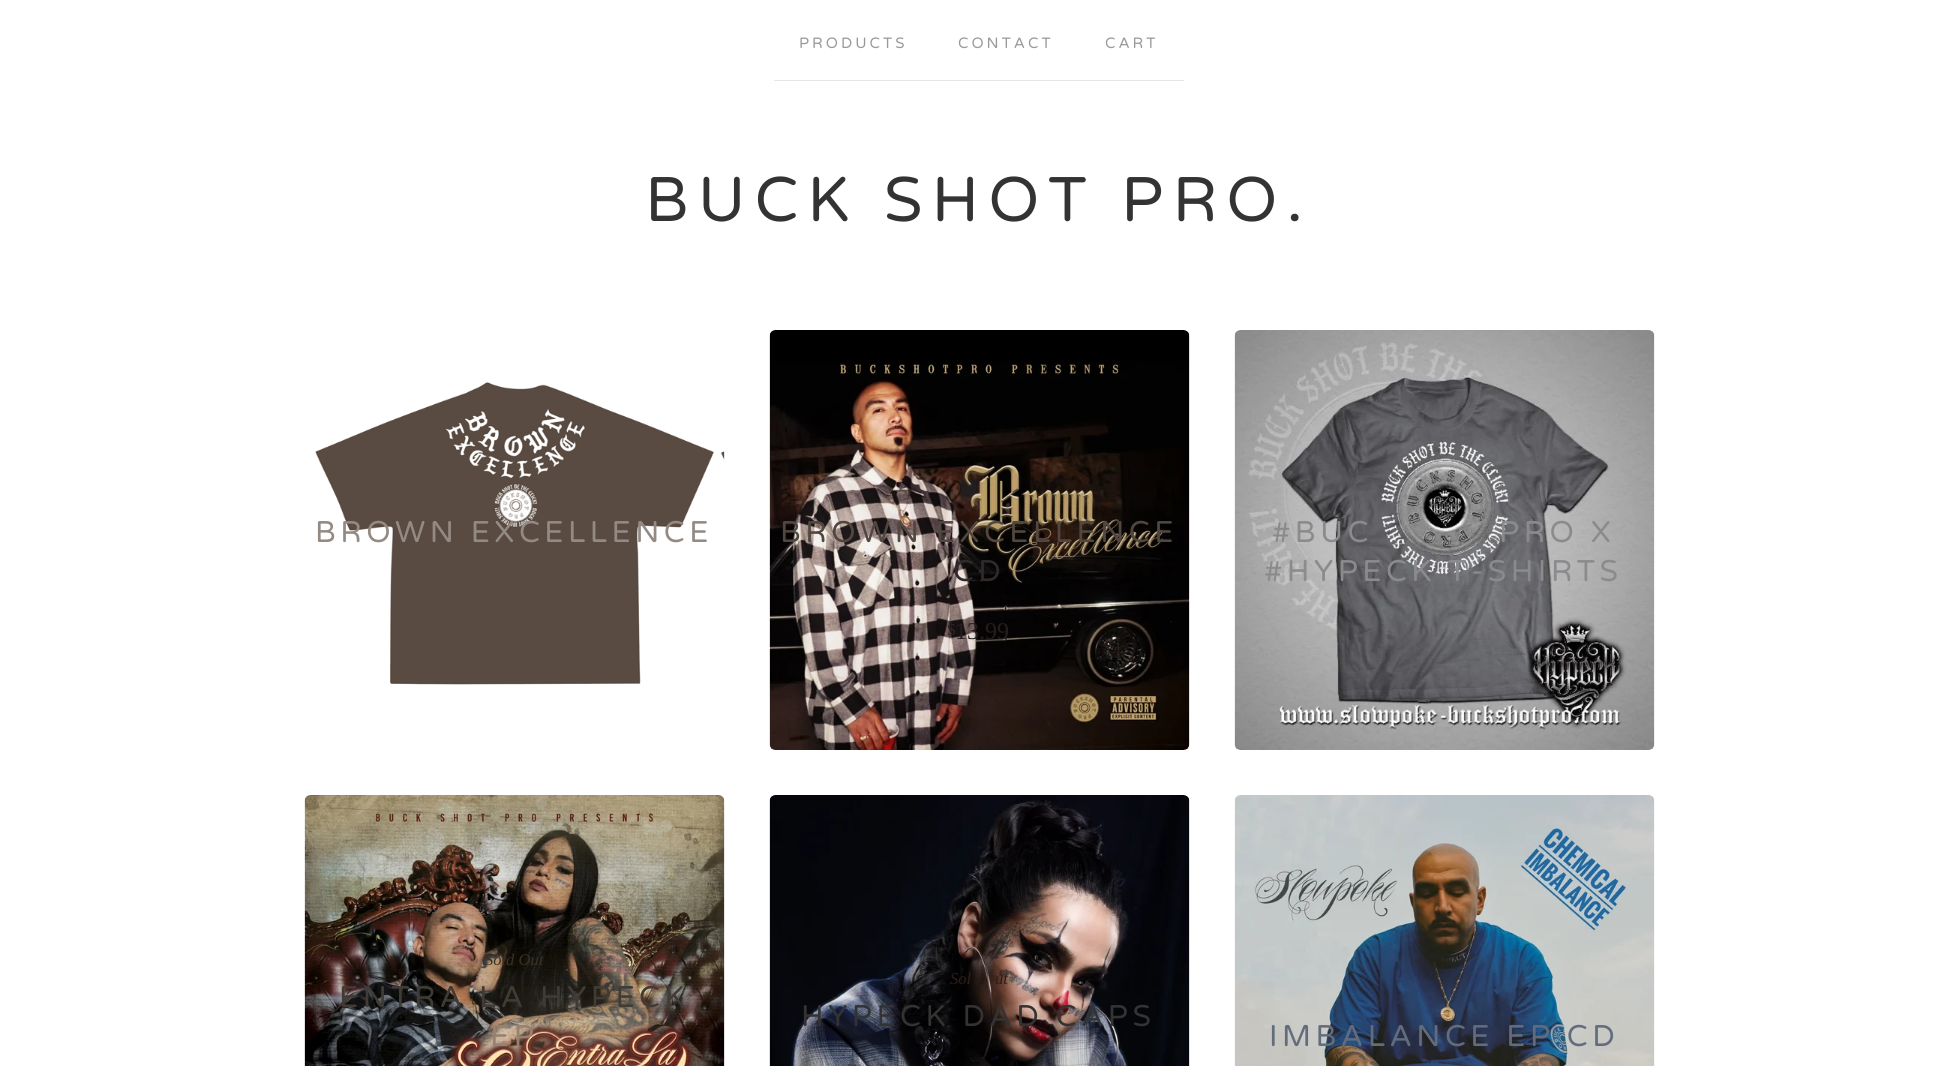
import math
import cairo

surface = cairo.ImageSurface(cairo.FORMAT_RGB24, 1957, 1066)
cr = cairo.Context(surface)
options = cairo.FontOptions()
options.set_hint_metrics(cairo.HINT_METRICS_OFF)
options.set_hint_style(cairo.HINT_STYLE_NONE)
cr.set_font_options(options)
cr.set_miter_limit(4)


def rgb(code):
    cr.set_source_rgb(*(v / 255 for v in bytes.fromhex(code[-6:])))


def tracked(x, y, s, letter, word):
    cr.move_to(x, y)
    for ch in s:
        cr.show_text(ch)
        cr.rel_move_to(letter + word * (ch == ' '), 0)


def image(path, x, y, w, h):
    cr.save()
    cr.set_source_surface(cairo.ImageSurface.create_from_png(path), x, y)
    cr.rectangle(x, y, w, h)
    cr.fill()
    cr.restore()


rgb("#ffffff")
cr.paint()
rgb("#e5e5e5")
cr.rectangle(774, 80, 410, 1)
cr.fill()
image("img/1.png", 315, 382, 410, 303)
image("img/2.png", 769, 330, 421, 420)
image("img/3.png", 1234, 330, 421, 420)
image("img/4.png", 304, 795, 421, 271)
image("img/5.png", 769, 795, 421, 271)
image("img/6.png", 1234, 795, 421, 271)
cr.select_font_face("Varela Round")
cr.set_font_size(15)
rgb("#999999")
for x, y, s in [
    (799, 48, "PRODUCTS"),
    (958, 48, "CONTACT"),
    (1105, 48, "CART"),
]:
    tracked(x, y, s, 3, 0)
cr.set_font_size(63)
rgb("#333333")
tracked(645, 221, "BUCK SHOT PRO.", 9, 0)
cr.set_font_size(30)
rgb("#938a83")
tracked(315, 542, "BROWN EXCELLENCE", 4.5, 0)
rgb("#524740")
tracked(780, 542, "BROWN EXCELLENCE", 4.5, 0)
rgb("#302b2b")
tracked(953, 581, "CD", 4.5, 0)
cr.select_font_face("Liberation Serif")
cr.set_font_size(17)
rgb("#2f2526")
cr.move_to(947, 635)
cr.show_text("$")
cr.set_font_size(24)
rgb("#231e1e")
cr.move_to(955, 639)
cr.show_text("13.99")
cr.select_font_face("Varela Round")
cr.set_font_size(30)
rgb("#8b8b8d")
for x, y, s in [
    (1272, 542, "#BUC"),
    (1499, 542, "PRO X"),
    (1264, 581, "#HYPECK T-SHIRTS"),
]:
    tracked(x, y, s, 4.5, 0)
cr.select_font_face("Liberation Serif", cairo.FONT_SLANT_ITALIC)
cr.set_font_size(16.5)
rgb("#393024")
cr.move_to(485, 965)
cr.show_text("Sold Out")
cr.select_font_face("Varela Round")
cr.set_font_size(30)
rgb("#413b35")
tracked(339, 1007, "ENTRA LA HYPECK", 4.5, 0)
rgb("#998170")
tracked(490, 1046, "EP", 4.5, 0)
cr.select_font_face("Liberation Serif", cairo.FONT_SLANT_ITALIC)
cr.set_font_size(16.5)
rgb("#2c1d19")
cr.move_to(950, 984)
cr.show_text("Sol")
cr.move_to(995, 984)
cr.show_text("ut")
cr.select_font_face("Varela Round")
cr.set_font_size(30)
rgb("#333333")
tracked(801, 1026, "HYPECK DAD CAPS", 4.5, 0)
rgb("#626c7c")
tracked(1269, 1046, "IMBALANCE EP CD", 4.5, 0)
surface.write_to_png("page.png")
